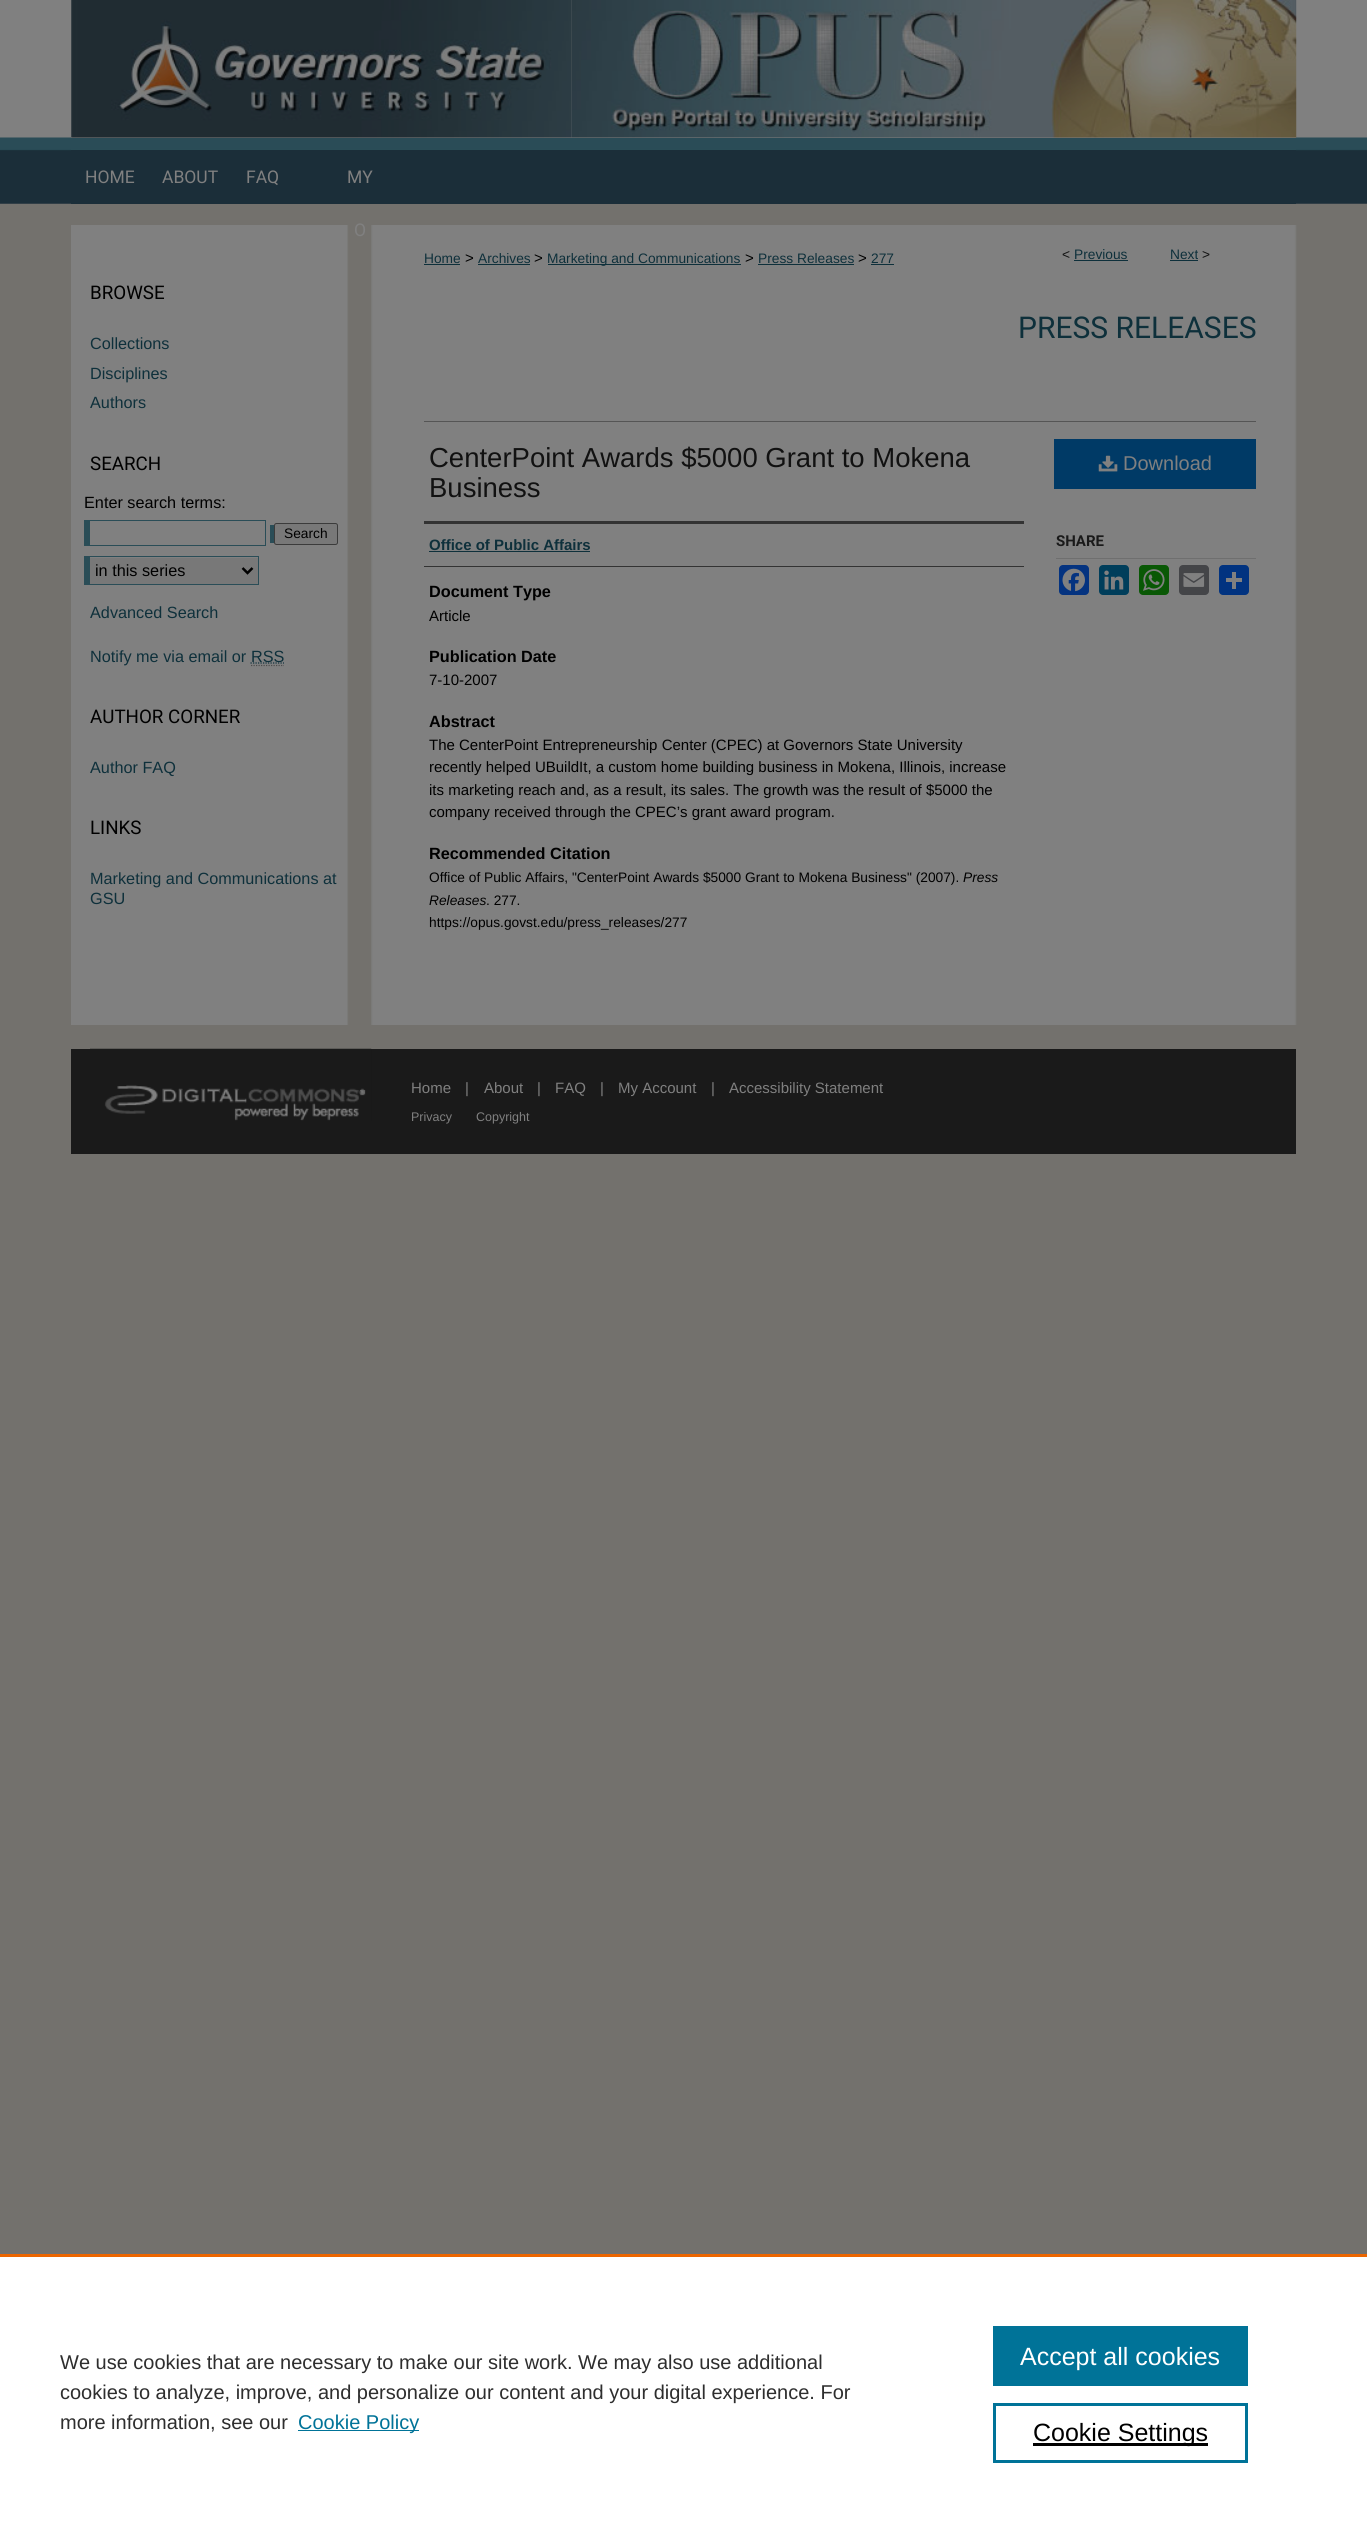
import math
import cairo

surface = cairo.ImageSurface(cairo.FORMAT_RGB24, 1367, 2528)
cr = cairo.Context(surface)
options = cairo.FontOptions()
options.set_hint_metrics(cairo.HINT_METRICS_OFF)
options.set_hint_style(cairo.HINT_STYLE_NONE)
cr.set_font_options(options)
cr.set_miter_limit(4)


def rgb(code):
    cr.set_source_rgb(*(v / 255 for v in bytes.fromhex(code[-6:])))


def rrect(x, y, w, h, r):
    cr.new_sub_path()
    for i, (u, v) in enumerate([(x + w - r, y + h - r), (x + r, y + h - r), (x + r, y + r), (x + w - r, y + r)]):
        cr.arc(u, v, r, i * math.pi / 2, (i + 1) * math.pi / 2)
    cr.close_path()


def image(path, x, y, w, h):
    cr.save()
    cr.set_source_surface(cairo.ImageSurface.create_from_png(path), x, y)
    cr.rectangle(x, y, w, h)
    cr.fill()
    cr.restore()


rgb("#73716d")
cr.paint()
image("img/1.png", 0, 0, 1367, 204)
rgb("#808080")
cr.rectangle(71, 137, 1225, 1)
cr.fill()
rgb("#2a4d57")
cr.rectangle(71, 149, 1225, 1)
cr.fill()
image("img/3.png", 571, 0, 726, 138)
image("img/2.png", 71, 0, 501, 138)
rgb("#1b2e39")
cr.rectangle(71, 150, 1225, 54)
cr.fill()
rgb("#808080")
cr.rectangle(71, 225, 276, 800)
cr.fill()
image("img/4.png", 347, 225, 950, 800)
for x, y, w, h, color in [
    (84, 520, 182, 26, "#2a4d57"),
    (270, 525, 4, 18, "#2a4d57"),
    (90, 521, 175, 24, "#808080"),
]:
    rgb(color)
    cr.rectangle(x, y, w, h)
    cr.fill()
rgb("#787878")
rrect(274.5, 523.5, 63, 21, 2)
cr.fill_preserve()
rgb("#3b3b3b")
cr.set_line_width(1)
cr.stroke()
for x, y, w, h, color in [
    (90, 558, 168, 26, "#787878"),
    (84, 556, 175, 1, "#2a4d57"),
    (258, 556, 1, 29, "#2a4d57"),
    (84, 584, 175, 1, "#2a4d57"),
    (84, 556, 6, 29, "#2a4d57"),
]:
    rgb(color)
    cr.rectangle(x, y, w, h)
    cr.fill()
cr.new_path()
cr.move_to(242.5, 568)
cr.line_to(247.5, 573)
cr.line_to(252.5, 568)
rgb("#000000")
cr.set_line_width(2.5)
cr.stroke()
cr.new_path()
cr.move_to(251, 665.5)
cr.line_to(284, 665.5)
rgb("#4d4d4d")
cr.set_line_width(1.2)
cr.set_dash([1.25, 1.25])
cr.stroke()
cr.new_path()
cr.move_to(250.5, 663)
cr.line_to(284, 663)
rgb("#0e303b")
cr.stroke()
for x, y, w, h, color in [
    (424, 264, 36, 1, "#0e303b"),
    (478, 264, 52, 1, "#0e303b"),
    (548, 264, 193, 1, "#0e303b"),
    (758, 264, 96, 1, "#0e303b"),
    (871, 264, 23, 1, "#0e303b"),
    (1074, 260, 54, 1, "#0e303b"),
    (1170, 260, 28, 1, "#0e303b"),
    (424, 421, 832, 1, "#555555"),
    (424, 521, 600, 3, "#333333"),
    (424, 566, 600, 1, "#333333"),
    (429, 551, 161, 1, "#0e303b"),
    (1054, 439, 202, 50, "#003a66"),
]:
    rgb(color)
    cr.rectangle(x, y, w, h)
    cr.fill()
image("img/5.png", 1098, 455, 20, 17)
rgb("#6f6f6f")
cr.rectangle(1056, 558, 200, 1)
cr.fill()
rgb("#043380")
rrect(1059, 565, 30, 30, 4)
cr.fill()
image("img/6.png", 1062, 568, 23, 24)
rgb("#003e5b")
rrect(1099, 565, 30, 30, 4)
cr.fill()
image("img/7.png", 1104, 570, 20, 20)
rgb("#095805")
rrect(1139, 565, 30, 30, 4)
cr.fill()
image("img/8.png", 1143, 569, 22, 22)
rgb("#444548")
rrect(1179, 565, 30, 30, 4)
cr.fill()
image("img/9.png", 1183, 573, 22, 14)
rgb("#013380")
rrect(1219, 565, 30, 30, 4)
cr.fill()
for x, y, w, h, color in [
    (1232, 572, 4, 17, "#808080"),
    (1226, 578, 16, 4, "#808080"),
    (71, 1049, 1225, 105, "#1a1a1a"),
]:
    rgb(color)
    cr.rectangle(x, y, w, h)
    cr.fill()
image("img/10.png", 90, 1048, 282, 73)
for x, y, w, h, color in [
    (0, 2257, 1367, 271, "#ffffff"),
    (0, 2254, 1367, 3, "#eb6500"),
    (298, 2430, 121, 1, "#007398"),
    (993, 2326, 255, 60, "#007398"),
]:
    rgb(color)
    cr.rectangle(x, y, w, h)
    cr.fill()
cr.rectangle(994.5, 2404.5, 252, 57)
cr.set_line_width(3)
cr.set_dash([])
cr.stroke()
rgb("#000000")
cr.rectangle(1033, 2443, 175, 3)
cr.fill()
cr.select_font_face("Roboto")
cr.set_font_size(17.5)
rgb("#808080")
for x, y, s in [
    (85, 183, "HOME"),
    (162, 183, "ABOUT"),
    (246, 183, "FAQ"),
    (347, 183, "MY"),
    (354, 236, "O"),
]:
    cr.move_to(x, y)
    cr.show_text(s)
cr.set_font_size(18.75)
rgb("#000000")
cr.move_to(90, 299)
cr.show_text("BROWSE")
cr.select_font_face("Liberation Sans")
cr.set_font_size(16.25)
rgb("#0e303b")
for x, y, s in [
    (90, 349, "Collections"),
    (90, 379, "Disciplines"),
    (90, 408, "Authors"),
]:
    cr.move_to(x, y)
    cr.show_text(s)
cr.select_font_face("Roboto")
cr.set_font_size(18.75)
rgb("#000000")
cr.move_to(90, 470)
cr.show_text("SEARCH")
cr.select_font_face("Liberation Sans")
cr.set_font_size(16.25)
cr.move_to(84, 508)
cr.show_text("Enter search terms:")
cr.set_font_size(13.75)
cr.move_to(284, 538)
cr.show_text("Search")
cr.set_font_size(16.25)
cr.move_to(95, 576)
cr.show_text("in this series")
rgb("#0e303b")
for x, y, s in [
    (90, 618, "Advanced Search"),
    (90, 662, "Notify me via email or"),
    (251, 662, "RSS"),
]:
    cr.move_to(x, y)
    cr.show_text(s)
cr.select_font_face("Roboto")
cr.set_font_size(18.75)
rgb("#000000")
cr.move_to(90, 723)
cr.show_text("AUTHOR CORNER")
cr.select_font_face("Liberation Sans")
cr.set_font_size(16.25)
rgb("#0e303b")
cr.move_to(90, 773)
cr.show_text("Author FAQ")
cr.select_font_face("Roboto")
cr.set_font_size(18.75)
rgb("#000000")
cr.move_to(90, 834)
cr.show_text("LINKS")
cr.select_font_face("Liberation Sans")
cr.set_font_size(16.25)
rgb("#0e303b")
cr.move_to(90, 884)
cr.show_text("Marketing and Communications at")
cr.move_to(90, 904)
cr.show_text("GSU")
cr.set_font_size(13.75)
cr.move_to(424, 263)
cr.show_text("Home")
cr.set_font_size(15)
rgb("#000000")
cr.move_to(465, 263)
cr.show_text(">")
cr.set_font_size(13.75)
rgb("#0e303b")
cr.move_to(478, 263)
cr.show_text("Archives")
cr.set_font_size(15)
rgb("#000000")
cr.move_to(534, 263)
cr.show_text(">")
cr.set_font_size(13.75)
rgb("#0e303b")
cr.move_to(547, 263)
cr.show_text("Marketing and Communications")
cr.set_font_size(15)
rgb("#000000")
cr.move_to(745, 263)
cr.show_text(">")
cr.set_font_size(13.75)
rgb("#0e303b")
cr.move_to(758, 263)
cr.show_text("Press Releases")
cr.set_font_size(15)
rgb("#000000")
cr.move_to(858, 263)
cr.show_text(">")
cr.set_font_size(13.75)
rgb("#0e303b")
cr.move_to(871, 263)
cr.show_text("277")
rgb("#111111")
cr.move_to(1062, 259)
cr.show_text("<")
rgb("#0e303b")
cr.move_to(1074, 259)
cr.show_text("Previous")
cr.move_to(1170, 259)
cr.show_text("Next")
rgb("#111111")
cr.move_to(1202, 259)
cr.show_text(">")
cr.select_font_face("Roboto")
cr.set_font_size(30)
rgb("#0e303b")
cr.move_to(1018, 338)
cr.show_text("PRESS RELEASES")
cr.select_font_face("Liberation Sans")
cr.set_font_size(27.5)
rgb("#111111")
cr.move_to(429, 467)
cr.show_text("CenterPoint Awards $5000 Grant to Mokena")
cr.move_to(429, 497)
cr.show_text("Business")
cr.select_font_face("Liberation Sans", cairo.FONT_SLANT_NORMAL, cairo.FONT_WEIGHT_BOLD)
cr.set_font_size(15)
rgb("#0e303b")
cr.move_to(429, 550)
cr.show_text("Office of Public Affairs")
cr.set_font_size(16.25)
rgb("#000000")
cr.move_to(429, 597)
cr.show_text("Document Type")
cr.select_font_face("Liberation Sans")
cr.set_font_size(15)
cr.move_to(429, 621)
cr.show_text("Article")
cr.select_font_face("Liberation Sans", cairo.FONT_SLANT_NORMAL, cairo.FONT_WEIGHT_BOLD)
cr.set_font_size(16.25)
cr.move_to(429, 662)
cr.show_text("Publication Date")
cr.select_font_face("Liberation Sans")
cr.set_font_size(15)
cr.move_to(429, 685)
cr.show_text("7-10-2007")
cr.select_font_face("Liberation Sans", cairo.FONT_SLANT_NORMAL, cairo.FONT_WEIGHT_BOLD)
cr.set_font_size(16.25)
cr.move_to(429, 727)
cr.show_text("Abstract")
cr.select_font_face("Liberation Sans")
cr.set_font_size(15)
for x, y, s in [
    (429, 750, "The CenterPoint Entrepreneurship Center (CPEC) at Governors State University"),
    (429, 772, "recently helped UBuildIt, a custom home building business in Mokena, Illinois, increase"),
    (429, 795, "its marketing reach and, as a result, its sales. The growth was the result of $5000 the"),
    (429, 817, "company received through the CPEC’s grant award program."),
]:
    cr.move_to(x, y)
    cr.show_text(s)
cr.select_font_face("Liberation Sans", cairo.FONT_SLANT_NORMAL, cairo.FONT_WEIGHT_BOLD)
cr.set_font_size(16.25)
cr.move_to(429, 859)
cr.show_text("Recommended Citation")
cr.select_font_face("Liberation Sans")
cr.set_font_size(13.75)
cr.move_to(429, 882)
cr.show_text("Office of Public Affairs, \"CenterPoint Awards $5000 Grant to Mokena Business\" (2007).")
cr.select_font_face("Liberation Sans", cairo.FONT_SLANT_ITALIC)
cr.move_to(963, 882)
cr.show_text("Press")
cr.move_to(429, 905)
cr.show_text("Releases")
cr.select_font_face("Liberation Sans")
cr.move_to(486, 905)
cr.show_text(". 277.")
cr.move_to(429, 927)
cr.show_text("https://opus.govst.edu/press_releases/277")
cr.set_font_size(20)
rgb("#808080")
cr.move_to(1123, 470)
cr.show_text("Download")
cr.select_font_face("Roboto", cairo.FONT_SLANT_NORMAL, cairo.FONT_WEIGHT_BOLD)
cr.set_font_size(15)
rgb("#1a1a1a")
cr.move_to(1056, 546)
cr.show_text("SHARE")
cr.select_font_face("Liberation Sans")
rgb("#808080")
for x, y, s in [
    (411, 1093, "Home"),
    (465, 1093, "|"),
    (484, 1093, "About"),
    (537, 1093, "|"),
    (555, 1093, "FAQ"),
    (600, 1093, "|"),
    (618, 1093, "My Account"),
    (711, 1093, "|"),
    (729, 1093, "Accessibility Statement"),
]:
    cr.move_to(x, y)
    cr.show_text(s)
cr.set_font_size(12.5)
cr.move_to(411, 1121)
cr.show_text("Privacy")
cr.move_to(476, 1121)
cr.show_text("Copyright")
cr.set_font_size(20)
rgb("#2e2e2e")
for x, y, s in [
    (60, 2369, "We use cookies that are necessary to make our site work. We may also use additional"),
    (60, 2399, "cookies to analyze, improve, and personalize our content and your digital experience. For"),
    (60, 2429, "more information, see our"),
]:
    cr.move_to(x, y)
    cr.show_text(s)
rgb("#007398")
cr.move_to(298, 2429)
cr.show_text("Cookie Policy")
cr.set_font_size(25)
rgb("#ffffff")
cr.move_to(1020, 2365)
cr.show_text("Accept all cookies")
rgb("#000000")
cr.move_to(1033, 2441)
cr.show_text("Cookie Settings")
surface.write_to_png("page.png")
